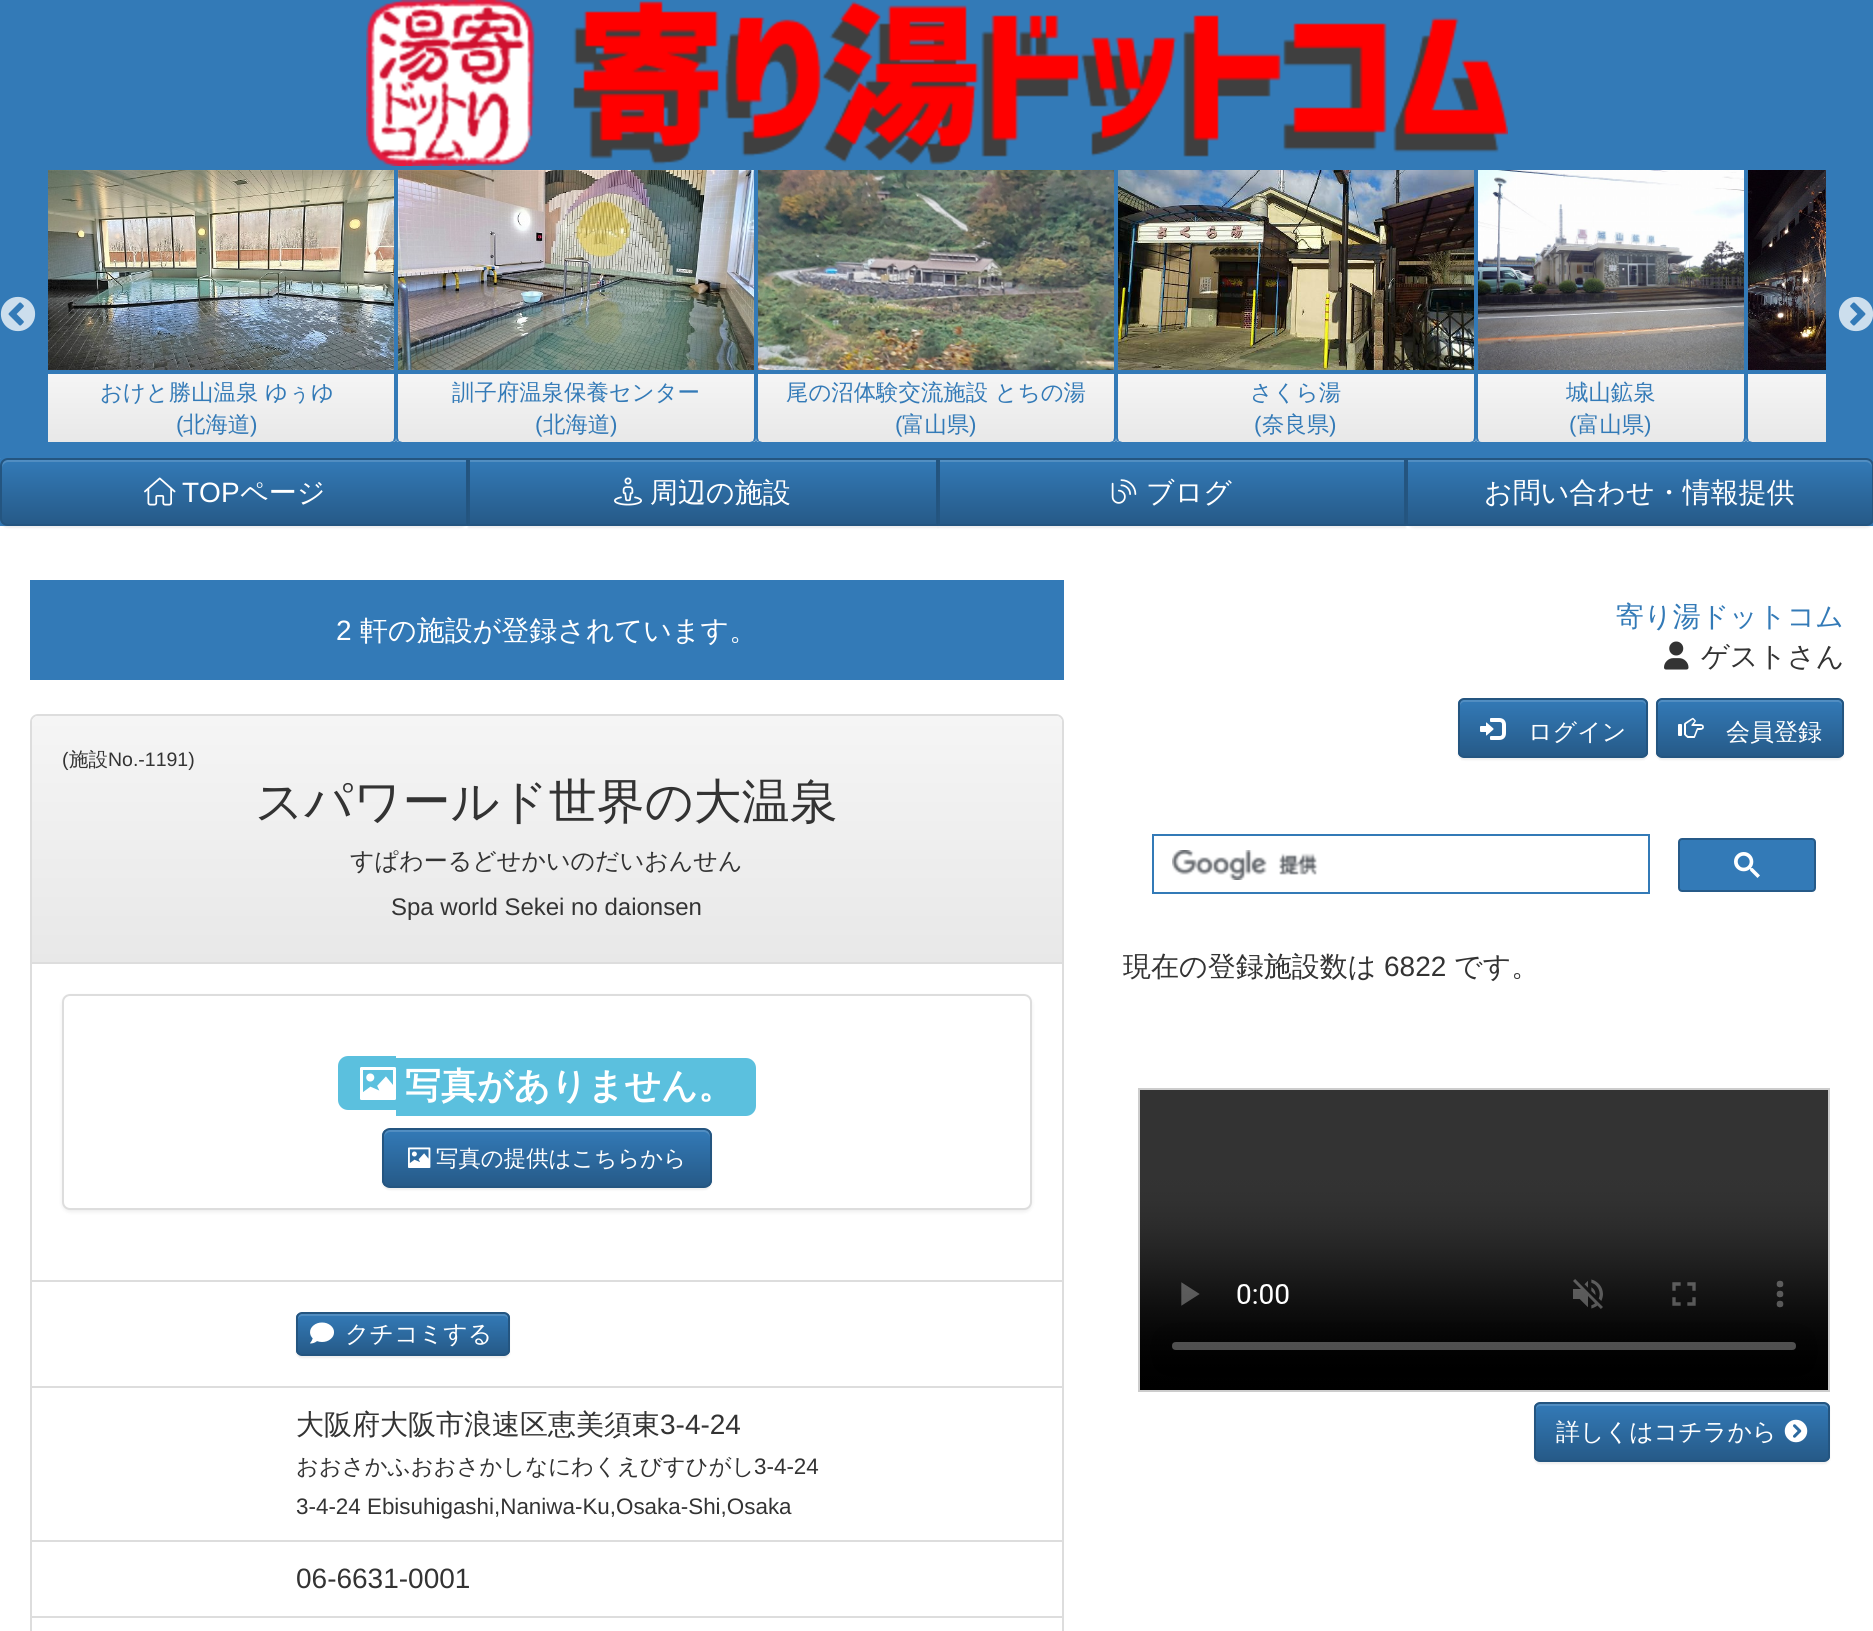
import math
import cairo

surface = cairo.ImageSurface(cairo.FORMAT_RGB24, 1873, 1631)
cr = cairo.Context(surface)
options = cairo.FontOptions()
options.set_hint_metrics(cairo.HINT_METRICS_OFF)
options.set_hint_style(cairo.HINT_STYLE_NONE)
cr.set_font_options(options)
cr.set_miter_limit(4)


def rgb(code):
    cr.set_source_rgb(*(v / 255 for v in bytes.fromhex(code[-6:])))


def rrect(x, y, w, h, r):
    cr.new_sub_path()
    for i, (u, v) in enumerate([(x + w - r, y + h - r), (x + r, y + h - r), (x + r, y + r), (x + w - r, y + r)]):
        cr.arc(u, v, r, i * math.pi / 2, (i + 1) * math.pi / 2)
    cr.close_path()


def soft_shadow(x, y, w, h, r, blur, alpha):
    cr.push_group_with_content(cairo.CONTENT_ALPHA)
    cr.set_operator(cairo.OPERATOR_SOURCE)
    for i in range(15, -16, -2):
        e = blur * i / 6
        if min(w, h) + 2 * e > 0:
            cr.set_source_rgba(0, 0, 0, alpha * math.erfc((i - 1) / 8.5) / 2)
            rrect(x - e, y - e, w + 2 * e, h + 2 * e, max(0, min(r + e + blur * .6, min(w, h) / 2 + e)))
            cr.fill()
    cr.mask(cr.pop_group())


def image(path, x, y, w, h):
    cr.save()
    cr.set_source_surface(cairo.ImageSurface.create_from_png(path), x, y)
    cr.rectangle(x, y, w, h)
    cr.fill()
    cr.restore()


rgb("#ffffff")
cr.paint()
rgb("#337ab7")
cr.rectangle(0, 0, 1873, 174)
cr.fill()
image("img/1.png", 366, 0, 1142, 166)
rrect(1, 167, 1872, 298, 7)
cr.fill_preserve()
cr.stroke()
image("img/2.png", 0, 296, 36, 36)
image("img/3.png", 1838, 296, 35, 36)
image("img/4.png", 48, 170, 346, 200)
cr.save()
cr.new_path()
cr.move_to(36, 372)
cr.line_to(396, 372)
cr.line_to(396, 438)
cr.curve_to(396, 441.5, 393.5, 444, 390, 444)
cr.line_to(42, 444)
cr.curve_to(38.5, 444, 36, 441.5, 36, 438)
cr.close_path()
cr.clip()
gradient = cairo.LinearGradient(216, 374, 216, 442)
gradient.add_color_stop_rgba(0, 0.961, 0.961, 0.961, 1)
gradient.add_color_stop_rgba(1, 0.91, 0.91, 0.91, 1)
cr.set_source(gradient)
cr.rectangle(48, 374, 348, 68)
cr.fill()
cr.restore()
cr.new_path()
cr.move_to(396, 372)
cr.line_to(394, 374)
cr.line_to(394, 438)
cr.line_to(393, 441)
cr.line_to(394, 442)
cr.curve_to(395, 441, 396, 440, 396, 438)
cr.close_path()
cr.fill()
cr.save()
cr.rectangle(48, 168, 1778, 296)
cr.clip()
cr.new_path()
cr.move_to(42, 444)
cr.line_to(390, 444)
cr.curve_to(392, 444, 393, 443, 394, 442)
cr.line_to(393, 441)
cr.line_to(390, 442)
cr.line_to(42, 442)
cr.line_to(39, 441)
cr.line_to(38, 442)
cr.curve_to(39, 443, 40, 444, 42, 444)
cr.close_path()
cr.fill()
cr.restore()
image("img/5.png", 398, 170, 356, 200)
cr.save()
cr.new_path()
cr.move_to(396, 372)
cr.line_to(756, 372)
cr.line_to(756, 438)
cr.curve_to(756, 441.5, 753.5, 444, 750, 444)
cr.line_to(402, 444)
cr.curve_to(398.5, 444, 396, 441.5, 396, 438)
cr.close_path()
cr.clip()
gradient = cairo.LinearGradient(576, 374, 576, 442)
gradient.add_color_stop_rgba(0, 0.961, 0.961, 0.961, 1)
gradient.add_color_stop_rgba(1, 0.91, 0.91, 0.91, 1)
cr.set_source(gradient)
cr.rectangle(396, 374, 360, 68)
cr.fill()
cr.restore()
cr.new_path()
cr.move_to(756, 372)
cr.line_to(754, 374)
cr.line_to(754, 438)
cr.line_to(753, 441)
cr.line_to(754, 442)
cr.curve_to(755, 441, 756, 440, 756, 438)
cr.close_path()
cr.fill()
cr.new_path()
cr.move_to(402, 444)
cr.line_to(750, 444)
cr.curve_to(752, 444, 753, 443, 754, 442)
cr.line_to(753, 441)
cr.line_to(750, 442)
cr.line_to(402, 442)
cr.line_to(399, 441)
cr.line_to(398, 442)
cr.curve_to(399, 443, 400, 444, 402, 444)
cr.close_path()
cr.fill()
cr.new_path()
cr.move_to(398, 374)
cr.line_to(396, 372)
cr.line_to(396, 438)
cr.curve_to(396, 440, 397, 441, 398, 442)
cr.line_to(399, 441)
cr.line_to(398, 438)
cr.close_path()
cr.fill()
image("img/6.png", 758, 170, 356, 200)
cr.save()
cr.new_path()
cr.move_to(756, 372)
cr.line_to(1116, 372)
cr.line_to(1116, 438)
cr.curve_to(1116, 441.5, 1113.5, 444, 1110, 444)
cr.line_to(762, 444)
cr.curve_to(758.5, 444, 756, 441.5, 756, 438)
cr.close_path()
cr.clip()
gradient = cairo.LinearGradient(936, 374, 936, 442)
gradient.add_color_stop_rgba(0, 0.961, 0.961, 0.961, 1)
gradient.add_color_stop_rgba(1, 0.91, 0.91, 0.91, 1)
cr.set_source(gradient)
cr.rectangle(756, 374, 360, 68)
cr.fill()
cr.restore()
cr.new_path()
cr.move_to(1116, 372)
cr.line_to(1114, 374)
cr.line_to(1114, 438)
cr.line_to(1113, 441)
cr.line_to(1114, 442)
cr.curve_to(1115, 441, 1116, 440, 1116, 438)
cr.close_path()
cr.fill()
cr.new_path()
cr.move_to(762, 444)
cr.line_to(1110, 444)
cr.curve_to(1112, 444, 1113, 443, 1114, 442)
cr.line_to(1113, 441)
cr.line_to(1110, 442)
cr.line_to(762, 442)
cr.line_to(759, 441)
cr.line_to(758, 442)
cr.curve_to(759, 443, 760, 444, 762, 444)
cr.close_path()
cr.fill()
cr.new_path()
cr.move_to(758, 374)
cr.line_to(756, 372)
cr.line_to(756, 438)
cr.curve_to(756, 440, 757, 441, 758, 442)
cr.line_to(759, 441)
cr.line_to(758, 438)
cr.close_path()
cr.fill()
image("img/7.png", 1118, 170, 356, 200)
cr.save()
cr.new_path()
cr.move_to(1116, 372)
cr.line_to(1476, 372)
cr.line_to(1476, 438)
cr.curve_to(1476, 441.5, 1473.5, 444, 1470, 444)
cr.line_to(1122, 444)
cr.curve_to(1118.5, 444, 1116, 441.5, 1116, 438)
cr.close_path()
cr.clip()
gradient = cairo.LinearGradient(1296, 374, 1296, 442)
gradient.add_color_stop_rgba(0, 0.961, 0.961, 0.961, 1)
gradient.add_color_stop_rgba(1, 0.91, 0.91, 0.91, 1)
cr.set_source(gradient)
cr.rectangle(1116, 374, 360, 68)
cr.fill()
cr.restore()
cr.new_path()
cr.move_to(1476, 372)
cr.line_to(1474, 374)
cr.line_to(1474, 438)
cr.line_to(1473, 441)
cr.line_to(1474, 442)
cr.curve_to(1475, 441, 1476, 440, 1476, 438)
cr.close_path()
cr.fill()
cr.new_path()
cr.move_to(1122, 444)
cr.line_to(1470, 444)
cr.curve_to(1472, 444, 1473, 443, 1474, 442)
cr.line_to(1473, 441)
cr.line_to(1470, 442)
cr.line_to(1122, 442)
cr.line_to(1119, 441)
cr.line_to(1118, 442)
cr.curve_to(1119, 443, 1120, 444, 1122, 444)
cr.close_path()
cr.fill()
cr.new_path()
cr.move_to(1118, 374)
cr.line_to(1116, 372)
cr.line_to(1116, 438)
cr.curve_to(1116, 440, 1117, 441, 1118, 442)
cr.line_to(1119, 441)
cr.line_to(1118, 438)
cr.close_path()
cr.fill()
image("img/8.png", 1478, 170, 266, 200)
cr.save()
cr.new_path()
cr.move_to(1476, 372)
cr.line_to(1746, 372)
cr.line_to(1746, 438)
cr.curve_to(1746, 441.5, 1743.5, 444, 1740, 444)
cr.line_to(1482, 444)
cr.curve_to(1478.5, 444, 1476, 441.5, 1476, 438)
cr.close_path()
cr.clip()
gradient = cairo.LinearGradient(1611, 374, 1611, 442)
gradient.add_color_stop_rgba(0, 0.961, 0.961, 0.961, 1)
gradient.add_color_stop_rgba(1, 0.91, 0.91, 0.91, 1)
cr.set_source(gradient)
cr.rectangle(1476, 374, 270, 68)
cr.fill()
cr.restore()
cr.new_path()
cr.move_to(1746, 372)
cr.line_to(1744, 374)
cr.line_to(1744, 438)
cr.line_to(1743, 441)
cr.line_to(1744, 442)
cr.curve_to(1745, 441, 1746, 440, 1746, 438)
cr.close_path()
cr.fill()
cr.new_path()
cr.move_to(1482, 444)
cr.line_to(1741, 444)
cr.line_to(1744, 442)
cr.line_to(1743, 441)
cr.curve_to(1742, 442, 1741, 442, 1740, 442)
cr.line_to(1482, 442)
cr.curve_to(1481, 442, 1480, 442, 1479, 441)
cr.line_to(1478, 442)
cr.curve_to(1479, 443, 1480, 444, 1482, 444)
cr.close_path()
cr.fill()
cr.new_path()
cr.move_to(1478, 374)
cr.line_to(1476, 372)
cr.line_to(1476, 438)
cr.curve_to(1476, 440, 1477, 441, 1478, 442)
cr.line_to(1479, 441)
cr.line_to(1478, 438)
cr.close_path()
cr.fill()
image("img/9.png", 1748, 170, 78, 200)
cr.save()
cr.new_path()
cr.move_to(1746, 372)
cr.line_to(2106, 372)
cr.line_to(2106, 438)
cr.curve_to(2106, 441.5, 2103.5, 444, 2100, 444)
cr.line_to(1752, 444)
cr.curve_to(1748.5, 444, 1746, 441.5, 1746, 438)
cr.close_path()
cr.clip()
gradient = cairo.LinearGradient(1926, 374, 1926, 442)
gradient.add_color_stop_rgba(0, 0.961, 0.961, 0.961, 1)
gradient.add_color_stop_rgba(1, 0.91, 0.91, 0.91, 1)
cr.set_source(gradient)
cr.rectangle(1746, 374, 80, 68)
cr.fill()
cr.restore()
cr.save()
cr.rectangle(48, 168, 1778, 296)
cr.clip()
cr.new_path()
cr.move_to(1752, 444)
cr.line_to(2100, 444)
cr.curve_to(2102, 444, 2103, 443, 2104, 442)
cr.line_to(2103, 441)
cr.line_to(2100, 442)
cr.line_to(1752, 442)
cr.line_to(1749, 441)
cr.line_to(1748, 442)
cr.curve_to(1749, 443, 1750, 444, 1752, 444)
cr.close_path()
cr.fill()
cr.restore()
cr.new_path()
cr.move_to(1748, 374)
cr.line_to(1746, 372)
cr.line_to(1746, 438)
cr.curve_to(1746, 440, 1747, 441, 1748, 442)
cr.line_to(1749, 441)
cr.line_to(1748, 438)
cr.close_path()
cr.fill()
cr.rectangle(0, 459, 1873, 67)
cr.fill()
rgb("#000000")
soft_shadow(0, 460, 468, 68, 8, 1, 0.07)
cr.save()
cr.new_path()
cr.move_to(8, 458)
cr.line_to(468, 458)
cr.line_to(468, 526)
cr.line_to(8, 526)
cr.curve_to(3.5, 526, 0, 522.5, 0, 518)
cr.line_to(0, 466)
cr.curve_to(0, 461.5, 3.5, 458, 8, 458)
cr.close_path()
cr.clip()
gradient = cairo.LinearGradient(234, 460, 234, 524)
gradient.add_color_stop_rgba(0, 0.2, 0.478, 0.718, 1)
gradient.add_color_stop_rgba(1, 0.149, 0.353, 0.533, 1)
cr.set_source(gradient)
cr.rectangle(0, 460, 466, 64)
cr.fill()
cr.restore()
cr.set_source_rgba(1, 1, 1, 0.15)
cr.new_path()
cr.move_to(8, 462)
cr.line_to(466, 462)
cr.line_to(466, 460)
cr.line_to(8, 460)
cr.curve_to(3, 460, 2, 464, 2, 468)
cr.curve_to(2, 465, 5, 462, 8, 462)
cr.close_path()
cr.fill()
cr.new_path()
cr.move_to(8, 459)
cr.line_to(467, 459)
cr.line_to(467, 525)
cr.line_to(8, 525)
cr.curve_to(4, 525, 1, 522, 1, 518)
cr.line_to(1, 466)
cr.curve_to(1, 462, 4, 459, 8, 459)
cr.close_path()
rgb("#245580")
cr.stroke()
image("img/10.png", 144, 477, 32, 29)
rgb("#000000")
soft_shadow(468, 460, 470, 68, 0, 1, 0.07)
gradient = cairo.LinearGradient(703, 460, 703, 524)
gradient.add_color_stop_rgba(0, 0.2, 0.478, 0.718, 1)
gradient.add_color_stop_rgba(1, 0.149, 0.353, 0.533, 1)
cr.set_source(gradient)
cr.rectangle(470, 462, 466, 62)
cr.fill()
rgb("#528ec1")
cr.rectangle(470, 460, 466, 2)
cr.fill()
cr.rectangle(469, 459, 468, 66)
rgb("#245580")
cr.stroke()
image("img/11.png", 614, 477, 28, 29)
rgb("#000000")
soft_shadow(938, 460, 468, 68, 0, 1, 0.07)
gradient = cairo.LinearGradient(1172, 460, 1172, 524)
gradient.add_color_stop_rgba(0, 0.2, 0.478, 0.718, 1)
gradient.add_color_stop_rgba(1, 0.149, 0.353, 0.533, 1)
cr.set_source(gradient)
cr.rectangle(940, 462, 464, 62)
cr.fill()
rgb("#528ec1")
cr.rectangle(940, 460, 464, 2)
cr.fill()
cr.rectangle(939, 459, 466, 66)
rgb("#245580")
cr.stroke()
image("img/12.png", 1111, 479, 26, 25)
rgb("#000000")
soft_shadow(1406, 460, 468, 68, 8, 1, 0.07)
cr.save()
cr.new_path()
cr.move_to(1406, 458)
cr.line_to(1866, 458)
cr.curve_to(1870.5, 458, 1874, 461.5, 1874, 466)
cr.line_to(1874, 518)
cr.curve_to(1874, 522.5, 1870.5, 526, 1866, 526)
cr.line_to(1406, 526)
cr.close_path()
cr.clip()
gradient = cairo.LinearGradient(1640, 460, 1640, 524)
gradient.add_color_stop_rgba(0, 0.2, 0.478, 0.718, 1)
gradient.add_color_stop_rgba(1, 0.149, 0.353, 0.533, 1)
cr.set_source(gradient)
cr.rectangle(1408, 460, 465, 64)
cr.fill()
cr.restore()
cr.set_source_rgba(1, 1, 1, 0.15)
cr.new_path()
cr.move_to(1408, 462)
cr.line_to(1866, 462)
cr.curve_to(1869, 462, 1872, 465, 1872, 468)
cr.curve_to(1872, 464, 1871, 460, 1866, 460)
cr.line_to(1408, 460)
cr.close_path()
cr.fill()
cr.new_path()
cr.move_to(1407, 459)
cr.line_to(1866, 459)
cr.curve_to(1870, 459, 1873, 462, 1873, 466)
cr.line_to(1873, 518)
cr.curve_to(1873, 522, 1870, 525, 1866, 525)
cr.line_to(1407, 525)
cr.close_path()
rgb("#245580")
cr.stroke()
rgb("#337ab7")
cr.rectangle(30, 580, 1034, 100)
cr.fill()
rrect(31, 715, 1032, 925, 7)
rgb("#dddddd")
cr.stroke()
gradient = cairo.LinearGradient(547, 716, 547, 962)
gradient.add_color_stop_rgba(0, 0.961, 0.961, 0.961, 1)
gradient.add_color_stop_rgba(1, 0.91, 0.91, 0.91, 1)
cr.set_source(gradient)
cr.new_path()
cr.move_to(38, 716)
cr.line_to(1056, 716)
cr.curve_to(1059.5, 716, 1062, 718.5, 1062, 722)
cr.line_to(1062, 962)
cr.line_to(32, 962)
cr.line_to(32, 722)
cr.curve_to(32, 718.5, 34.5, 716, 38, 716)
cr.close_path()
cr.fill()
rgb("#dddddd")
cr.rectangle(32, 962, 1030, 2)
cr.fill()
rgb("#000000")
soft_shadow(62, 996, 970, 216, 8, 2, 0.07)
rgb("#ffffff")
rrect(63, 995, 968, 214, 7)
cr.fill_preserve()
rgb("#dddddd")
cr.stroke()
rgb("#5bc0de")
cr.new_path()
cr.move_to(348, 1056)
cr.line_to(396, 1056)
cr.line_to(396, 1110)
cr.line_to(348, 1110)
cr.curve_to(342.5, 1110, 338, 1105.5, 338, 1100)
cr.line_to(338, 1066)
cr.curve_to(338, 1060.5, 342.5, 1056, 348, 1056)
cr.close_path()
cr.fill()
cr.new_path()
cr.move_to(396, 1058)
cr.line_to(746, 1058)
cr.curve_to(751.5, 1058, 756, 1062.5, 756, 1068)
cr.line_to(756, 1106)
cr.curve_to(756, 1111.5, 751.5, 1116, 746, 1116)
cr.line_to(396, 1116)
cr.close_path()
cr.fill()
image("img/13.png", 360, 1067, 36, 33)
rgb("#000000")
soft_shadow(382, 1130, 330, 60, 8, 1, 0.07)
cr.save()
rrect(382, 1128, 330, 60, 8)
cr.clip()
gradient = cairo.LinearGradient(547, 1130, 547, 1186)
gradient.add_color_stop_rgba(0, 0.2, 0.478, 0.718, 1)
gradient.add_color_stop_rgba(1, 0.149, 0.353, 0.533, 1)
cr.set_source(gradient)
cr.rectangle(382, 1130, 330, 56)
cr.fill()
cr.restore()
cr.set_source_rgba(1, 1, 1, 0.15)
cr.new_path()
cr.move_to(390, 1132)
cr.line_to(704, 1132)
cr.curve_to(707, 1132, 710, 1135, 710, 1138)
cr.curve_to(710, 1134, 709, 1130, 704, 1130)
cr.line_to(390, 1130)
cr.curve_to(385, 1130, 384, 1134, 384, 1138)
cr.curve_to(384, 1135, 387, 1132, 390, 1132)
cr.close_path()
cr.fill()
rrect(383, 1129, 328, 58, 7)
rgb("#245580")
cr.stroke()
image("img/14.png", 408, 1147, 23, 21)
rgb("#dddddd")
cr.rectangle(32, 1280, 1030, 2)
cr.fill()
rgb("#000000")
soft_shadow(296, 1314, 214, 44, 6, 1, 0.07)
cr.save()
rrect(296, 1312, 214, 44, 6)
cr.clip()
gradient = cairo.LinearGradient(403, 1314, 403, 1354)
gradient.add_color_stop_rgba(0, 0.2, 0.478, 0.718, 1)
gradient.add_color_stop_rgba(1, 0.149, 0.353, 0.533, 1)
cr.set_source(gradient)
cr.rectangle(296, 1314, 214, 40)
cr.fill()
cr.restore()
cr.set_source_rgba(1, 1, 1, 0.15)
cr.new_path()
cr.move_to(302, 1316)
cr.line_to(504, 1316)
cr.curve_to(506, 1316, 508, 1318, 508, 1320)
cr.curve_to(508, 1317, 508, 1315, 505, 1314)
cr.line_to(301, 1314)
cr.curve_to(298, 1315, 298, 1317, 298, 1320)
cr.curve_to(298, 1318, 300, 1316, 302, 1316)
cr.close_path()
cr.fill()
rrect(297, 1313, 212, 42, 5)
rgb("#245580")
cr.stroke()
image("img/15.png", 310, 1322, 24, 22)
for x, y, w, h, color in [
    (32, 1386, 1030, 2, "#dddddd"),
    (32, 1540, 1030, 2, "#dddddd"),
    (32, 1616, 1030, 2, "#dddddd"),
]:
    rgb(color)
    cr.rectangle(x, y, w, h)
    cr.fill()
image("img/16.png", 1664, 641, 25, 29)
rgb("#000000")
soft_shadow(1458, 700, 190, 60, 6, 1, 0.07)
cr.save()
rrect(1458, 698, 190, 60, 6)
cr.clip()
gradient = cairo.LinearGradient(1553, 700, 1553, 756)
gradient.add_color_stop_rgba(0, 0.2, 0.478, 0.718, 1)
gradient.add_color_stop_rgba(1, 0.149, 0.353, 0.533, 1)
cr.set_source(gradient)
cr.rectangle(1458, 700, 190, 56)
cr.fill()
cr.restore()
cr.set_source_rgba(1, 1, 1, 0.15)
cr.new_path()
cr.move_to(1464, 702)
cr.line_to(1642, 702)
cr.curve_to(1644, 702, 1646, 704, 1646, 706)
cr.line_to(1646, 704)
cr.curve_to(1646, 702, 1644, 700, 1642, 700)
cr.line_to(1464, 700)
cr.curve_to(1462, 700, 1460, 702, 1460, 704)
cr.line_to(1460, 706)
cr.curve_to(1460, 704, 1462, 702, 1464, 702)
cr.close_path()
cr.fill()
rrect(1459, 699, 188, 58, 5)
rgb("#245580")
cr.stroke()
image("img/17.png", 1480, 718, 26, 22)
rgb("#000000")
soft_shadow(1656, 700, 188, 60, 6, 1, 0.07)
cr.save()
rrect(1656, 698, 188, 60, 6)
cr.clip()
gradient = cairo.LinearGradient(1750, 700, 1750, 756)
gradient.add_color_stop_rgba(0, 0.2, 0.478, 0.718, 1)
gradient.add_color_stop_rgba(1, 0.149, 0.353, 0.533, 1)
cr.set_source(gradient)
cr.rectangle(1656, 700, 188, 56)
cr.fill()
cr.restore()
cr.set_source_rgba(1, 1, 1, 0.15)
cr.new_path()
cr.move_to(1662, 702)
cr.line_to(1838, 702)
cr.curve_to(1840, 702, 1842, 704, 1842, 706)
cr.line_to(1842, 704)
cr.curve_to(1842, 702, 1840, 700, 1838, 700)
cr.line_to(1662, 700)
cr.curve_to(1660, 700, 1658, 702, 1658, 704)
cr.line_to(1658, 706)
cr.curve_to(1658, 704, 1660, 702, 1662, 702)
cr.close_path()
cr.fill()
rrect(1657, 699, 186, 58, 5)
rgb("#245580")
cr.stroke()
image("img/18.png", 1678, 717, 26, 21)
cr.rectangle(1153, 835, 496, 58)
rgb("#337ab7")
cr.stroke()
image("img/19.png", 1172, 850, 146, 30)
rrect(1679, 839, 136, 52, 3)
cr.fill_preserve()
rgb("#265a88")
cr.stroke()
image("img/20.png", 1734, 852, 26, 26)
cr.rectangle(1139, 1089, 690, 302)
rgb("#cccccc")
cr.stroke()
image("img/21.png", 1140, 1090, 688, 300)
rgb("#000000")
soft_shadow(1534, 1404, 296, 60, 6, 1, 0.07)
cr.save()
rrect(1534, 1402, 296, 60, 6)
cr.clip()
gradient = cairo.LinearGradient(1682, 1404, 1682, 1460)
gradient.add_color_stop_rgba(0, 0.2, 0.478, 0.718, 1)
gradient.add_color_stop_rgba(1, 0.149, 0.353, 0.533, 1)
cr.set_source(gradient)
cr.rectangle(1534, 1404, 296, 56)
cr.fill()
cr.restore()
cr.set_source_rgba(1, 1, 1, 0.15)
cr.new_path()
cr.move_to(1540, 1406)
cr.line_to(1824, 1406)
cr.curve_to(1826, 1406, 1828, 1408, 1828, 1410)
cr.line_to(1828, 1408)
cr.curve_to(1828, 1406, 1826, 1404, 1824, 1404)
cr.line_to(1540, 1404)
cr.curve_to(1538, 1404, 1536, 1406, 1536, 1408)
cr.line_to(1536, 1410)
cr.curve_to(1536, 1408, 1538, 1406, 1540, 1406)
cr.close_path()
cr.fill()
rrect(1535, 1403, 294, 58, 5)
rgb("#245580")
cr.stroke()
image("img/22.png", 1784, 1419, 24, 24)
cr.select_font_face("WenQuanYi Zen Hei Medium")
cr.set_font_size(22.4)
rgb("#337ab7")
cr.move_to(100, 400)
cr.show_text("おけと勝山温泉 ゆぅゆ")
cr.select_font_face("Liberation Sans")
cr.move_to(176, 432)
cr.show_text("(")
cr.select_font_face("WenQuanYi Zen Hei Medium")
cr.move_to(183, 432)
cr.show_text("北海道")
cr.select_font_face("Liberation Sans")
cr.move_to(250, 432)
cr.show_text(")")
cr.select_font_face("WenQuanYi Zen Hei Medium")
cr.move_to(452, 400)
cr.show_text("訓子府温泉保養センター")
cr.select_font_face("Liberation Sans")
cr.move_to(535, 432)
cr.show_text("(")
cr.select_font_face("WenQuanYi Zen Hei Medium")
cr.move_to(543, 432)
cr.show_text("北海道")
cr.select_font_face("Liberation Sans")
cr.move_to(610, 432)
cr.show_text(")")
cr.select_font_face("WenQuanYi Zen Hei Medium")
cr.move_to(786, 400)
cr.show_text("尾の沼体験交流施設 とちの湯")
cr.select_font_face("Liberation Sans")
cr.move_to(895, 432)
cr.show_text("(")
cr.select_font_face("WenQuanYi Zen Hei Medium")
cr.move_to(902, 432)
cr.show_text("富山県")
cr.select_font_face("Liberation Sans")
cr.move_to(969, 432)
cr.show_text(")")
cr.select_font_face("WenQuanYi Zen Hei Medium")
cr.move_to(1250, 400)
cr.show_text("さくら湯")
cr.select_font_face("Liberation Sans")
cr.move_to(1254, 432)
cr.show_text("(")
cr.select_font_face("WenQuanYi Zen Hei Medium")
cr.move_to(1262, 432)
cr.show_text("奈良県")
cr.select_font_face("Liberation Sans")
cr.move_to(1329, 432)
cr.show_text(")")
cr.select_font_face("WenQuanYi Zen Hei Medium")
cr.move_to(1566, 400)
cr.show_text("城山鉱泉")
cr.select_font_face("Liberation Sans")
cr.move_to(1569, 432)
cr.show_text("(")
cr.select_font_face("WenQuanYi Zen Hei Medium")
cr.move_to(1577, 432)
cr.show_text("富山県")
cr.select_font_face("Liberation Sans")
cr.move_to(1644, 432)
cr.show_text(")")
cr.set_font_size(28)
rgb("#ffffff")
cr.move_to(182, 502)
cr.show_text("TOP")
cr.select_font_face("WenQuanYi Zen Hei Medium")
for x, y, s in [
    (240, 502, "ページ"),
    (650, 502, "周辺の施設"),
    (1146, 502, "ブログ"),
    (1484, 502, "お問い合わせ・情報提供"),
]:
    cr.move_to(x, y)
    cr.show_text(s)
cr.select_font_face("Liberation Sans")
cr.move_to(336, 640)
cr.show_text("2")
cr.select_font_face("WenQuanYi Zen Hei Medium")
cr.move_to(360, 640)
cr.show_text("軒の施設が登録されています。")
cr.select_font_face("Liberation Sans")
cr.set_font_size(19.5)
rgb("#333333")
cr.move_to(62, 766)
cr.show_text("(")
cr.select_font_face("WenQuanYi Zen Hei Medium")
cr.move_to(69, 766)
cr.show_text("施設")
cr.select_font_face("Liberation Sans")
cr.move_to(108, 766)
cr.show_text("No.-1191)")
cr.select_font_face("WenQuanYi Zen Hei Medium")
cr.set_font_size(48)
cr.move_to(255, 818)
cr.show_text("スパワールド世界の大温泉")
cr.set_font_size(24)
cr.move_to(350, 869)
cr.show_text("すぱわーるどせかいのだいおんせん")
cr.select_font_face("Liberation Sans")
cr.move_to(391, 915)
cr.show_text("Spa world Sekei no daionsen")
cr.select_font_face("WenQuanYi Zen Hei", cairo.FONT_SLANT_NORMAL, cairo.FONT_WEIGHT_BOLD)
cr.set_font_size(36)
rgb("#ffffff")
cr.move_to(405, 1098)
cr.show_text("写真がありません。")
cr.select_font_face("WenQuanYi Zen Hei Medium")
cr.set_font_size(22.4)
cr.move_to(436, 1166)
cr.show_text("写真の提供はこちらから")
cr.set_font_size(24)
cr.move_to(345, 1342)
cr.show_text("クチコミする")
cr.set_font_size(28)
rgb("#333333")
cr.move_to(296, 1434)
cr.show_text("大阪府大阪市浪速区恵美須東")
cr.select_font_face("Liberation Sans")
cr.move_to(660, 1434)
cr.show_text("3-4-24")
cr.select_font_face("WenQuanYi Zen Hei Medium")
cr.set_font_size(22.4)
cr.move_to(296, 1474)
cr.show_text("おおさかふおおさかしなにわくえびすひがし")
cr.select_font_face("Liberation Sans")
cr.move_to(754, 1474)
cr.show_text("3-4-24")
cr.move_to(296, 1514)
cr.show_text("3-4-24 Ebisuhigashi,Naniwa-Ku,Osaka-Shi,Osaka")
cr.set_font_size(28)
cr.move_to(296, 1588)
cr.show_text("06-6631-0001")
cr.select_font_face("WenQuanYi Zen Hei Medium")
rgb("#337ab7")
cr.move_to(1616, 626)
cr.show_text("寄り湯ドットコム")
rgb("#333333")
cr.move_to(1701, 666)
cr.show_text("ゲストさん")
cr.set_font_size(24)
rgb("#ffffff")
cr.move_to(1528, 740)
cr.show_text("ログイン")
cr.move_to(1726, 740)
cr.show_text("会員登録")
cr.set_font_size(28)
rgb("#333333")
cr.move_to(1123, 976)
cr.show_text("現在の登録施設数は")
cr.select_font_face("Liberation Sans")
cr.move_to(1384, 976)
cr.show_text("6822")
cr.select_font_face("WenQuanYi Zen Hei Medium")
cr.move_to(1454, 976)
cr.show_text("です。")
cr.set_font_size(24)
rgb("#ffffff")
cr.move_to(1556, 1440)
cr.show_text("詳しくはコチラから")
surface.write_to_png("page.png")
